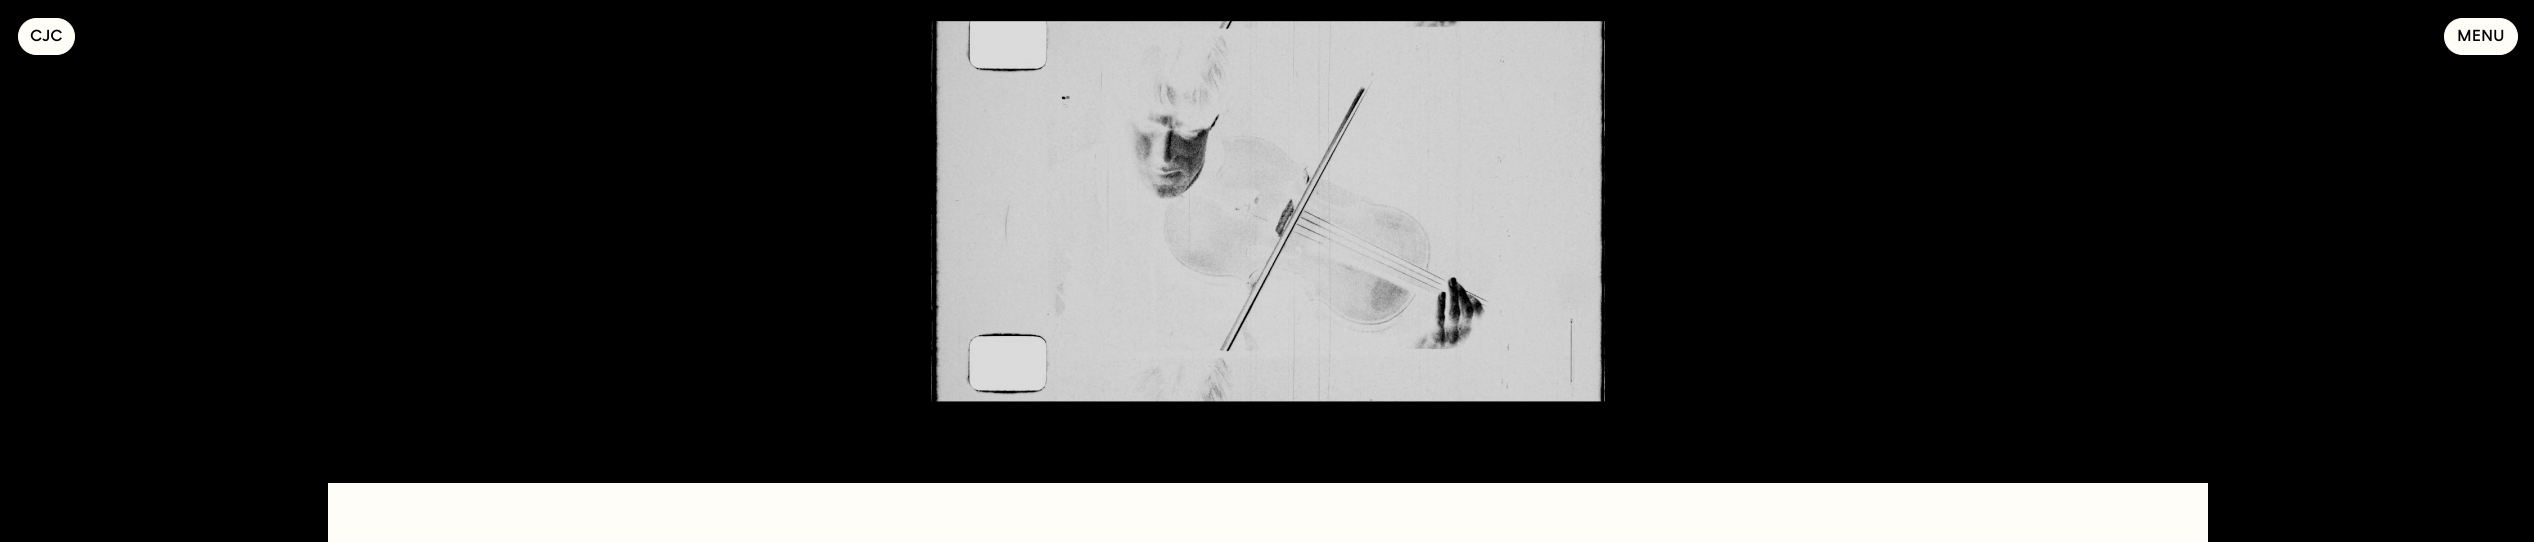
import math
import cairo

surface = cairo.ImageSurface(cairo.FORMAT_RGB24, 2534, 542)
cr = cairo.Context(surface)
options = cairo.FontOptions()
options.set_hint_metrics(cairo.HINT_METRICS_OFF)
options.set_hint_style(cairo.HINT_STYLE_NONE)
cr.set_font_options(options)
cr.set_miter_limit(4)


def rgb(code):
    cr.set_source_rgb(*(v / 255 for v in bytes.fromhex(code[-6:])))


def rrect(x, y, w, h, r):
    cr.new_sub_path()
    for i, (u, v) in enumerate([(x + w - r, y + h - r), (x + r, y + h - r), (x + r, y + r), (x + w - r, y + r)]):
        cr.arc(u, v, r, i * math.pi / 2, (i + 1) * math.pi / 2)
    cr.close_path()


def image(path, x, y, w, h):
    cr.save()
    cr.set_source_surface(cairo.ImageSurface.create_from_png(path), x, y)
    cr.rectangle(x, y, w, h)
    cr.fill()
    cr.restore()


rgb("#000000")
cr.paint()
image("img/1.png", 931, 21, 674, 381)
rgb("#fffdf8")
cr.rectangle(328, 483, 1880, 59)
cr.fill()
rrect(18.5, 18.5, 56, 36, 18)
cr.fill_preserve()
cr.set_line_width(1)
cr.stroke()
rrect(2444.5, 18.5, 73, 36, 18)
cr.fill_preserve()
cr.stroke()
cr.select_font_face("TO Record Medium")
cr.set_font_size(16)
rgb("#000000")
cr.move_to(30, 41)
cr.show_text("CJC")
cr.move_to(2457, 41)
cr.show_text("MENU")
surface.write_to_png("page.png")
